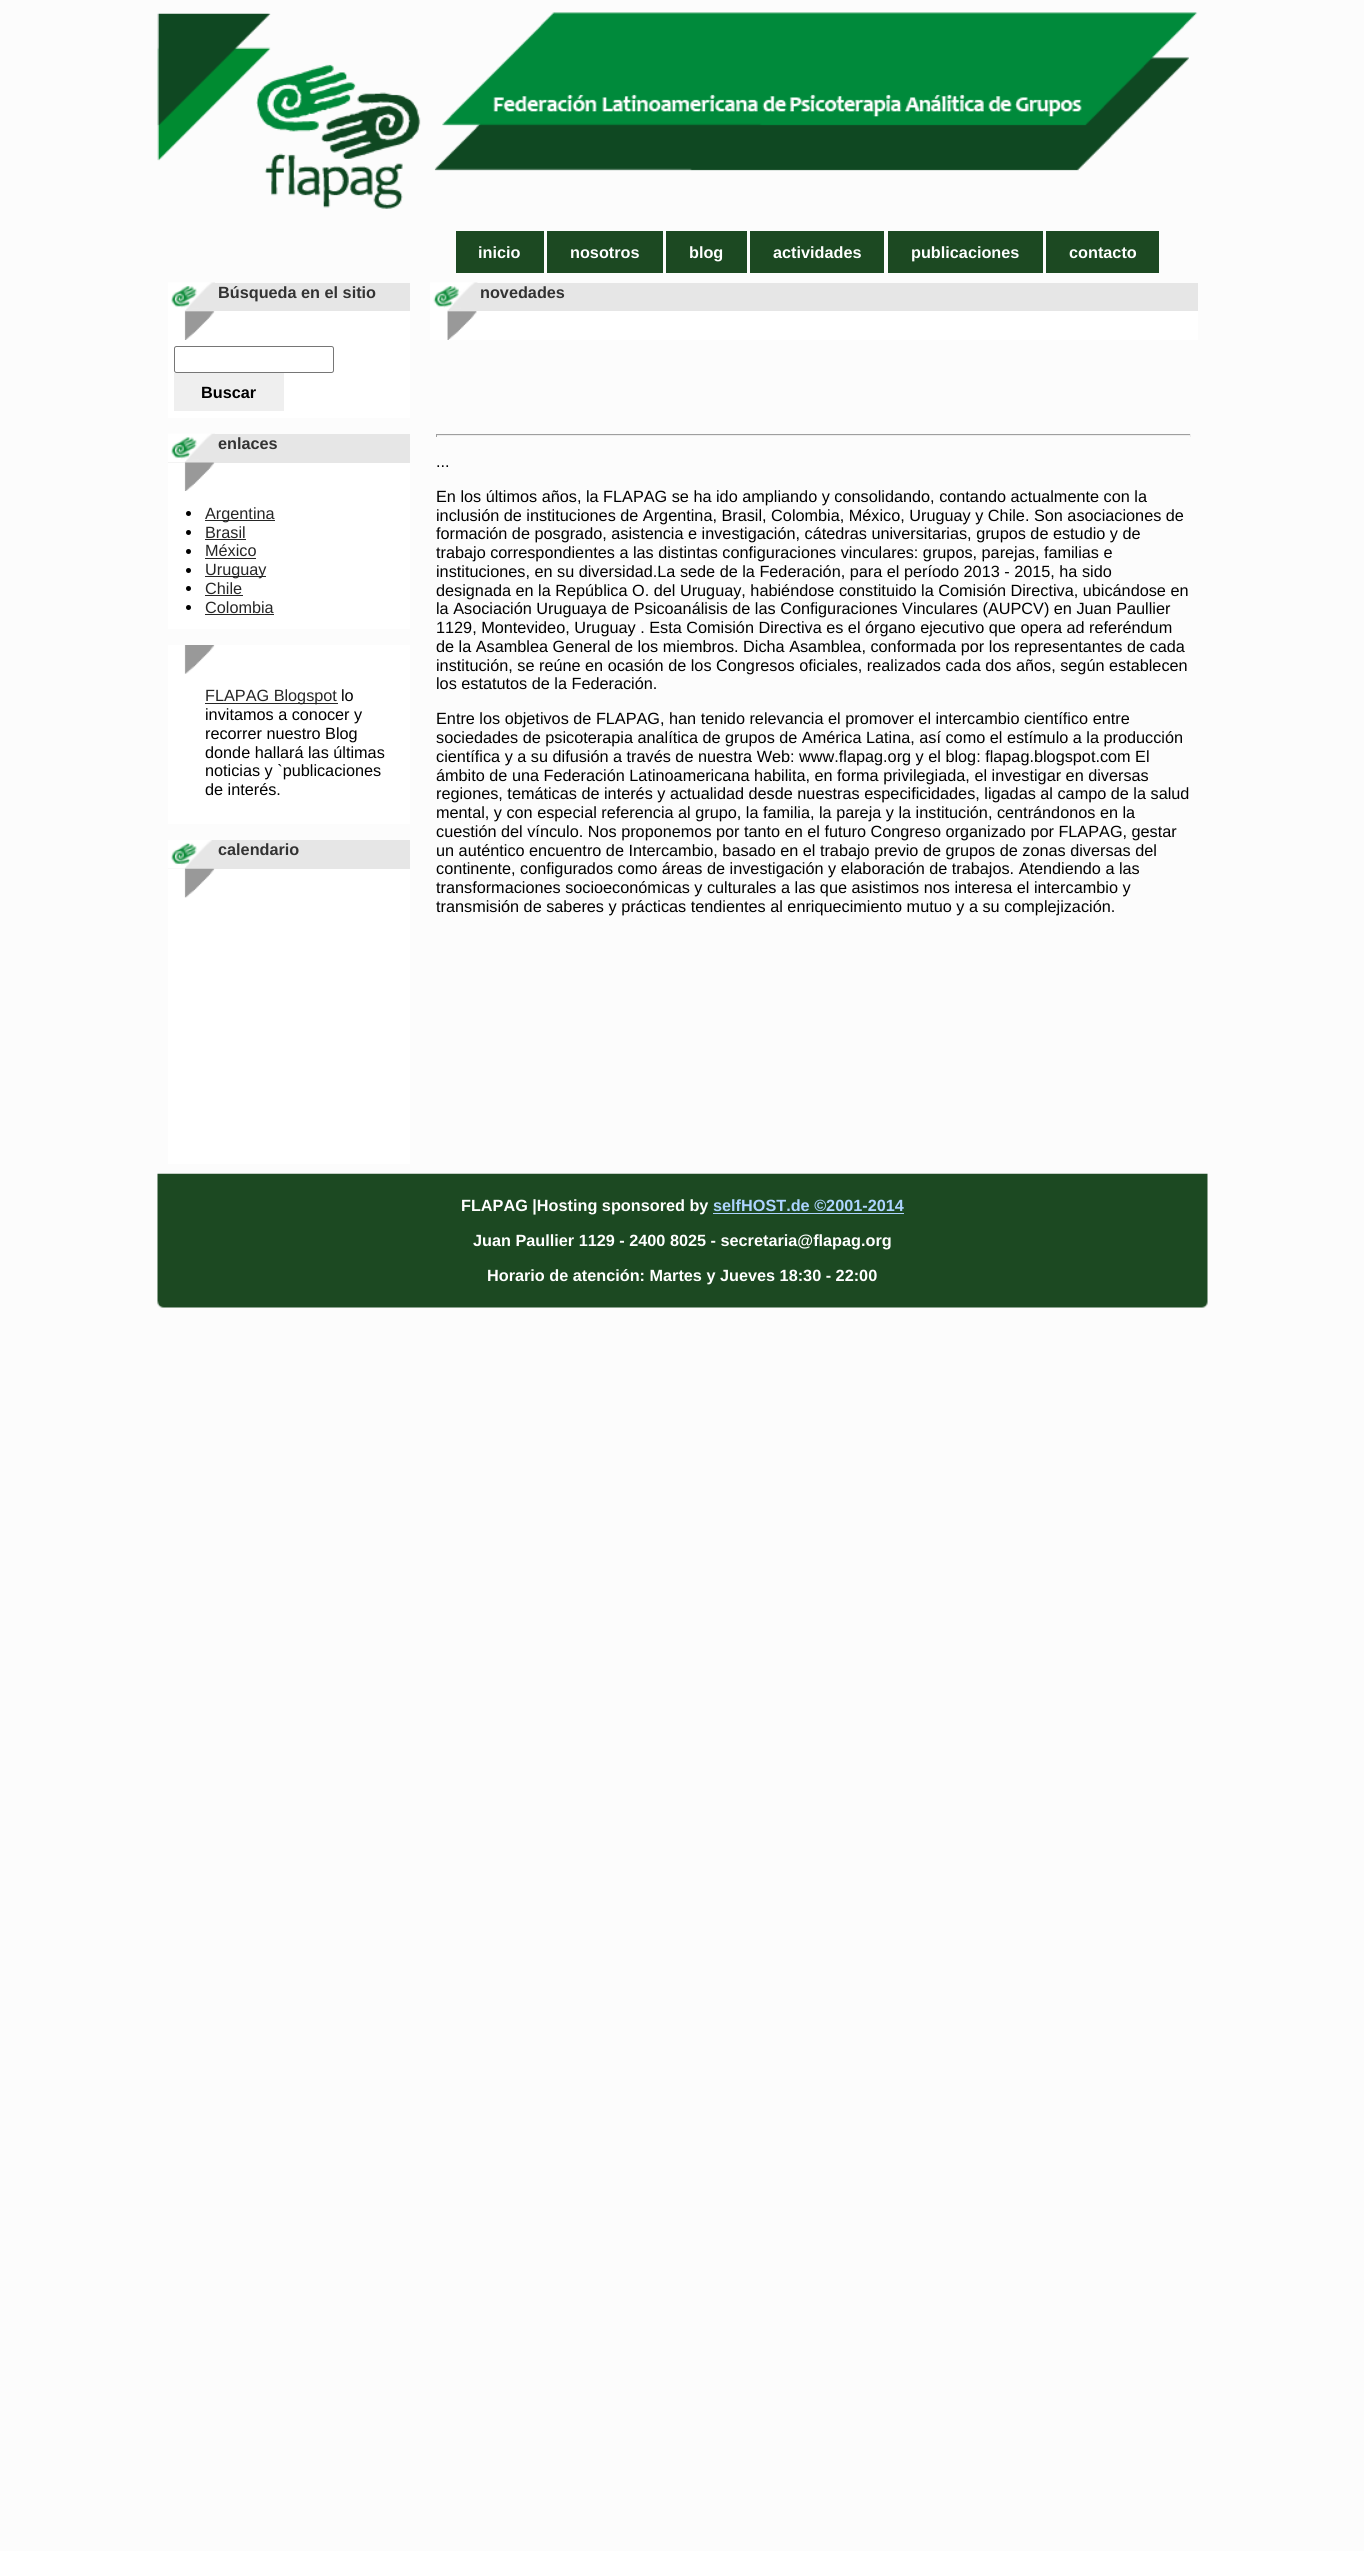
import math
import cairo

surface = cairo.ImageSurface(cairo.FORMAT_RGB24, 1364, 2551)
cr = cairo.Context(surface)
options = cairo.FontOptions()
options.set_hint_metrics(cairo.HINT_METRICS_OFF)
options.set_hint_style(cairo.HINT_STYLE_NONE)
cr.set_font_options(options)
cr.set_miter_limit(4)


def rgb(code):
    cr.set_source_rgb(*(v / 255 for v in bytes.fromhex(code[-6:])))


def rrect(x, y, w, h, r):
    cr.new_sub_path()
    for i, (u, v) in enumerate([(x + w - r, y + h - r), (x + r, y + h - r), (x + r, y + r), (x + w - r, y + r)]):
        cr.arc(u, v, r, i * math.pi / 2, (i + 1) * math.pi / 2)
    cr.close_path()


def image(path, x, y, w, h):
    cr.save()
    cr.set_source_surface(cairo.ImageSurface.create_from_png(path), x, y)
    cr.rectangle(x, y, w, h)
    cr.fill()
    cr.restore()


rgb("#fcfcfc")
cr.paint()
image("img/1.png", 157, 12, 1041, 197)
for x, y, w, h, color in [
    (456, 231, 88, 42, "#1c4922"),
    (547, 231, 116, 42, "#1c4922"),
    (666, 231, 81, 42, "#1c4922"),
    (750, 231, 134, 42, "#1c4922"),
    (888, 231, 155, 42, "#1c4922"),
    (1046, 231, 113, 42, "#1c4922"),
    (215, 283, 195, 28, "#e6e6e6"),
]:
    rgb(color)
    cr.rectangle(x, y, w, h)
    cr.fill()
image("img/2.png", 168, 282, 47, 29)
rgb("#ffffff")
cr.rectangle(168, 311, 242, 107)
cr.fill()
image("img/3.png", 184, 311, 31, 29)
rrect(174.5, 346.5, 159, 26, 2)
rgb("#767676")
cr.set_line_width(1)
cr.stroke()
rgb("#efefef")
cr.rectangle(174, 373, 110, 38)
cr.fill()
rgb("#e6e6e6")
cr.rectangle(168, 434, 242, 29)
cr.fill()
image("img/4.png", 168, 433, 47, 30)
rgb("#ffffff")
cr.rectangle(168, 463, 242, 166)
cr.fill()
image("img/5.png", 184, 462, 31, 29)
rgb("#000000")
cr.arc(188.5, 513.5, 2.5, 0, 2 * math.pi)
cr.fill()
rgb("#262626")
cr.rectangle(205, 520, 70, 1)
cr.fill()
rgb("#000000")
cr.arc(188.5, 532.5, 2.5, 0, 2 * math.pi)
cr.fill()
rgb("#262626")
cr.rectangle(205, 539, 41, 1)
cr.fill()
rgb("#000000")
cr.arc(188.5, 551.5, 2.5, 0, 2 * math.pi)
cr.fill()
rgb("#262626")
cr.rectangle(205, 558, 51, 1)
cr.fill()
rgb("#000000")
cr.arc(188.5, 570.5, 2.5, 0, 2 * math.pi)
cr.fill()
rgb("#262626")
cr.rectangle(205, 576, 61, 1)
cr.fill()
rgb("#000000")
cr.arc(188.5, 588.5, 2.5, 0, 2 * math.pi)
cr.fill()
rgb("#262626")
cr.rectangle(205, 595, 38, 1)
cr.fill()
rgb("#000000")
cr.arc(188.5, 607.5, 2.5, 0, 2 * math.pi)
cr.fill()
rgb("#262626")
cr.rectangle(205, 614, 69, 1)
cr.fill()
rgb("#ffffff")
cr.rectangle(168, 645, 242, 179)
cr.fill()
image("img/6.png", 184, 645, 31, 29)
cr.set_source_rgba(0.969, 0.969, 0.969, 0.25)
cr.rectangle(185, 673, 2, 1)
cr.fill()
rgb("#262626")
cr.rectangle(205, 703, 133, 1)
cr.fill()
rgb("#e6e6e6")
cr.rectangle(168, 840, 242, 29)
cr.fill()
image("img/7.png", 168, 840, 44, 29)
rgb("#ffffff")
cr.rectangle(168, 869, 242, 295)
cr.fill()
image("img/8.png", 184, 868, 31, 30)
cr.set_source_rgba(0.976, 0.976, 0.976, 0.5)
cr.rectangle(185, 897, 2, 1)
cr.fill()
rgb("#e6e6e6")
cr.rectangle(477, 283, 721, 28)
cr.fill()
image("img/9.png", 430, 282, 48, 29)
rgb("#ffffff")
cr.rectangle(430, 311, 768, 29)
cr.fill()
image("img/10.png", 447, 311, 30, 29)
for x, y, w, h, color in [
    (436, 434, 755, 1, "#9f9f9f"),
    (1190, 434, 1, 3, "#eeeeee"),
    (436, 435, 755, 1, "#eeeeee"),
    (436, 434, 1, 3, "#9f9f9f"),
]:
    rgb(color)
    cr.rectangle(x, y, w, h)
    cr.fill()
image("img/11.png", 157, 1173, 1051, 135)
rgb("#add4ff")
cr.rectangle(713, 1213, 191, 1)
cr.fill()
cr.select_font_face("Liberation Sans", cairo.FONT_SLANT_NORMAL, cairo.FONT_WEIGHT_BOLD)
cr.set_font_size(16.25)
rgb("#ffffff")
for x, y, s in [
    (478, 258, "inicio"),
    (570, 258, "nosotros"),
    (689, 258, "blog"),
    (773, 258, "actividades"),
    (911, 258, "publicaciones"),
    (1069, 258, "contacto"),
]:
    cr.move_to(x, y)
    cr.show_text(s)
rgb("#333333")
cr.move_to(218, 298)
cr.show_text("Búsqueda en el sitio")
rgb("#000000")
cr.move_to(201, 398)
cr.show_text("Buscar")
rgb("#333333")
cr.move_to(218, 449)
cr.show_text("enlaces")
cr.select_font_face("Liberation Sans")
rgb("#262626")
for x, y, s in [
    (205, 519, "Argentina"),
    (205, 538, "Brasil"),
    (205, 556, "México"),
    (205, 575, "Uruguay"),
    (205, 594, "Chile"),
    (205, 613, "Colombia"),
    (205, 701, "FLAPAG Blogspot"),
]:
    cr.move_to(x, y)
    cr.show_text(s)
rgb("#000000")
for x, y, s in [
    (341, 701, "lo"),
    (205, 720, "invitamos a conocer y"),
    (205, 739, "recorrer nuestro Blog"),
    (205, 758, "donde hallará las últimas"),
    (205, 776, "noticias y `publicaciones"),
    (205, 795, "de interés."),
]:
    cr.move_to(x, y)
    cr.show_text(s)
cr.select_font_face("Liberation Sans", cairo.FONT_SLANT_NORMAL, cairo.FONT_WEIGHT_BOLD)
rgb("#333333")
cr.move_to(218, 855)
cr.show_text("calendario")
cr.move_to(480, 298)
cr.show_text("novedades")
cr.select_font_face("Liberation Sans")
rgb("#000000")
for x, y, s in [
    (436, 467, "..."),
    (436, 502, "En los últimos años, la FLAPAG se ha ido ampliando y consolidando, contando actualmente con la"),
    (436, 521, "inclusión de instituciones de Argentina, Brasil, Colombia, México, Uruguay y Chile. Son asociaciones de"),
    (436, 539, "formación de posgrado, asistencia e investigación, cátedras universitarias, grupos de estudio y de"),
    (436, 558, "trabajo correspondientes a las distintas configuraciones vinculares: grupos, parejas, familias e"),
    (436, 577, "instituciones, en su diversidad.La sede de la Federación, para el período 2013 - 2015, ha sido"),
    (436, 596, "designada en la República O. del Uruguay, habiéndose constituido la Comisión Directiva, ubicándose en"),
    (436, 614, "la Asociación Uruguaya de Psicoanálisis de las Configuraciones Vinculares (AUPCV) en Juan Paullier"),
    (436, 633, "1129, Montevideo, Uruguay . Esta Comisión Directiva es el órgano ejecutivo que opera ad referéndum"),
    (436, 652, "de la Asamblea General de los miembros. Dicha Asamblea, conformada por los representantes de cada"),
    (436, 671, "institución, se reúne en ocasión de los Congresos oficiales, realizados cada dos años, según establecen"),
    (436, 689, "los estatutos de la Federación."),
    (436, 724, "Entre los objetivos de FLAPAG, han tenido relevancia el promover el intercambio científico entre"),
    (436, 743, "sociedades de psicoterapia analítica de grupos de América Latina, así como el estímulo a la producción"),
    (436, 762, "científica y a su difusión a través de nuestra Web: www.flapag.org y el blog: flapag.blogspot.com El"),
    (436, 781, "ámbito de una Federación Latinoamericana habilita, en forma privilegiada, el investigar en diversas"),
    (436, 799, "regiones, temáticas de interés y actualidad desde nuestras especificidades, ligadas al campo de la salud"),
    (436, 818, "mental, y con especial referencia al grupo, la familia, la pareja y la institución, centrándonos en la"),
    (436, 837, "cuestión del vínculo. Nos proponemos por tanto en el futuro Congreso organizado por FLAPAG, gestar"),
    (436, 856, "un auténtico encuentro de Intercambio, basado en el trabajo previo de grupos de zonas diversas del"),
    (436, 874, "continente, configurados como áreas de investigación y elaboración de trabajos. Atendiendo a las"),
    (436, 893, "transformaciones socioeconómicas y culturales a las que asistimos nos interesa el intercambio y"),
    (436, 912, "transmisión de saberes y prácticas tendientes al enriquecimiento mutuo y a su complejización."),
]:
    cr.move_to(x, y)
    cr.show_text(s)
cr.select_font_face("Liberation Sans", cairo.FONT_SLANT_NORMAL, cairo.FONT_WEIGHT_BOLD)
rgb("#ffffff")
cr.move_to(461, 1211)
cr.show_text("FLAPAG |Hosting sponsored by")
rgb("#add4ff")
cr.move_to(713, 1211)
cr.show_text("selfHOST.de ©2001-2014")
rgb("#ffffff")
cr.move_to(473, 1246)
cr.show_text("Juan Paullier 1129 - 2400 8025 - secretaria@flapag.org")
cr.move_to(487, 1281)
cr.show_text("Horario de atención: Martes y Jueves 18:30 - 22:00")
surface.write_to_png("page.png")
